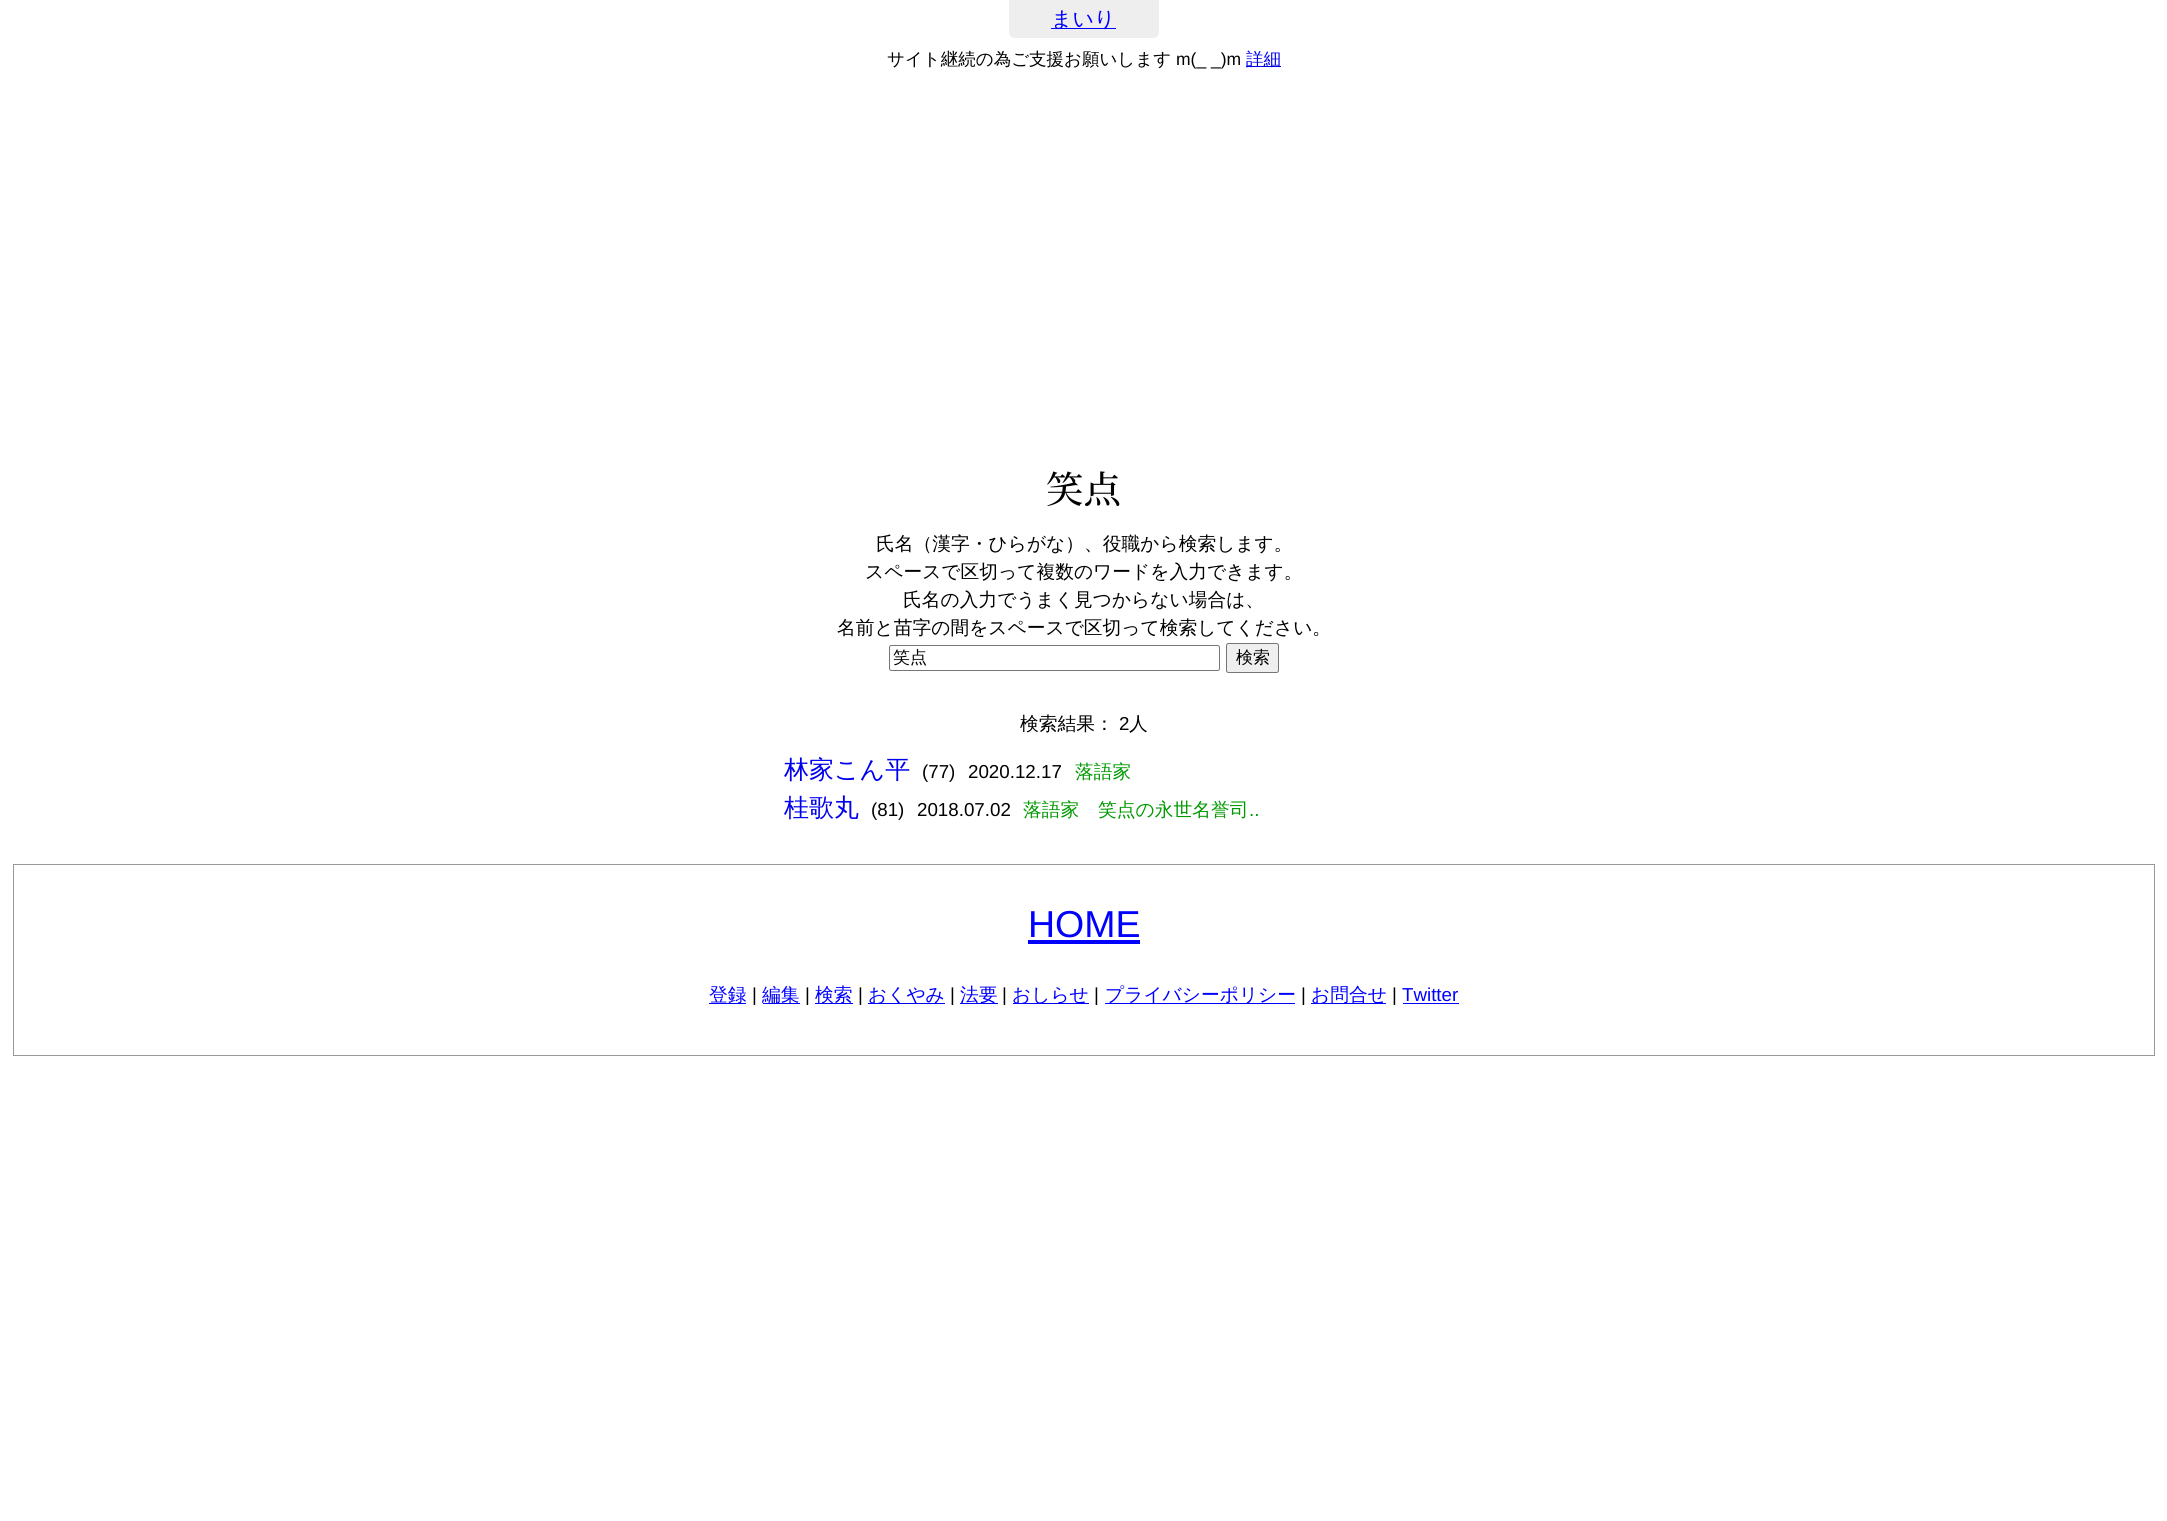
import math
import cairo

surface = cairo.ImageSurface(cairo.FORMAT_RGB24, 2167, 1521)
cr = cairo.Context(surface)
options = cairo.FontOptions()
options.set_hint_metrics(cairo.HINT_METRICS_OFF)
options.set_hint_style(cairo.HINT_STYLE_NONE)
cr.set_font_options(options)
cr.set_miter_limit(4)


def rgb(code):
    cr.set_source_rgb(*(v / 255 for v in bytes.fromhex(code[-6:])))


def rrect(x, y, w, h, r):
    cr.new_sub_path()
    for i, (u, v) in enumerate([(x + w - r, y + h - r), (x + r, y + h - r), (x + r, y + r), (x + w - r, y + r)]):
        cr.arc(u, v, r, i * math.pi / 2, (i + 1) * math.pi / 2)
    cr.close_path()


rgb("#ffffff")
cr.paint()
rgb("#eeeeee")
cr.new_path()
cr.move_to(1009, 0)
cr.line_to(1159, 0)
cr.line_to(1159, 32)
cr.curve_to(1159, 35.5, 1156.5, 38, 1153, 38)
cr.line_to(1015, 38)
cr.curve_to(1011.5, 38, 1009, 35.5, 1009, 32)
cr.close_path()
cr.fill()
rgb("#0000ff")
cr.rectangle(1051, 28, 65, 1)
cr.fill()
rgb("#0000ee")
cr.rectangle(1246, 66, 35, 1)
cr.fill()
rrect(889.5, 645.5, 330, 25, 2)
rgb("#767676")
cr.set_line_width(1)
cr.stroke()
rgb("#efefef")
rrect(1226.5, 643.5, 52, 29, 2)
cr.fill_preserve()
rgb("#767676")
cr.stroke()
cr.rectangle(13.5, 864.5, 2141, 191)
rgb("#999999")
cr.stroke()
for x, y, w, h, color in [
    (1028, 940, 112, 4, "#0000ff"),
    (709, 1003, 37, 1, "#0000ff"),
    (763, 1003, 37, 1, "#0000ff"),
    (815, 1003, 38, 1, "#0000ff"),
    (868, 1003, 77, 1, "#0000ff"),
    (960, 1003, 38, 1, "#0000ff"),
    (1013, 1003, 76, 1, "#0000ff"),
    (1105, 1003, 190, 1, "#0000ff"),
    (1311, 1003, 75, 1, "#0000ff"),
    (1403, 1003, 56, 1, "#0000ff"),
]:
    rgb(color)
    cr.rectangle(x, y, w, h)
    cr.fill()
cr.select_font_face("WenQuanYi Zen Hei Medium")
cr.set_font_size(21)
cr.move_to(1051, 26)
cr.show_text("まいり")
cr.set_font_size(17.5)
rgb("#000000")
cr.move_to(887, 65)
cr.show_text("サイト継続の為ご支援お願いします")
cr.select_font_face("Liberation Sans")
cr.move_to(1176, 65)
cr.show_text("m(_ _)m")
cr.select_font_face("WenQuanYi Zen Hei Medium")
rgb("#0000ee")
cr.move_to(1246, 65)
cr.show_text("詳細")
cr.select_font_face("Noto Serif JP ExtraLight")
cr.set_font_size(37.5)
rgb("#000000")
cr.move_to(1046, 503)
cr.show_text("笑点")
cr.select_font_face("WenQuanYi Zen Hei Medium")
cr.set_font_size(18.75)
for x, y, s in [
    (876, 550, "氏名（漢字・ひらがな）、役職から検索します。"),
    (865, 578, "スペースで区切って複数のワードを入力できます。"),
    (903, 606, "氏名の入力でうまく見つからない場合は、"),
    (837, 634, "名前と苗字の間をスペースで区切って検索してください。"),
]:
    cr.move_to(x, y)
    cr.show_text(s)
cr.set_font_size(17)
cr.move_to(893, 663)
cr.show_text("笑点")
cr.move_to(1236, 663)
cr.show_text("検索")
cr.set_font_size(18.75)
cr.move_to(1020, 730)
cr.show_text("検索結果：")
cr.select_font_face("Liberation Sans")
cr.move_to(1119, 730)
cr.show_text("2")
cr.select_font_face("WenQuanYi Zen Hei Medium")
cr.move_to(1129, 730)
cr.show_text("人")
cr.set_font_size(25)
rgb("#0000ee")
cr.move_to(784, 778)
cr.show_text("林家こん平")
cr.select_font_face("Liberation Sans")
cr.set_font_size(18.75)
rgb("#000000")
cr.move_to(922, 778)
cr.show_text("(77)")
cr.move_to(968, 778)
cr.show_text("2020.12.17")
cr.select_font_face("WenQuanYi Zen Hei Medium")
rgb("#009900")
cr.move_to(1075, 778)
cr.show_text("落語家")
cr.set_font_size(25)
rgb("#0000ee")
cr.move_to(784, 816)
cr.show_text("桂歌丸")
cr.select_font_face("Liberation Sans")
cr.set_font_size(18.75)
rgb("#000000")
cr.move_to(871, 816)
cr.show_text("(81)")
cr.move_to(917, 816)
cr.show_text("2018.07.02")
cr.select_font_face("WenQuanYi Zen Hei Medium")
rgb("#009900")
cr.move_to(1023, 816)
cr.show_text("落語家　笑点の永世名誉司")
cr.select_font_face("Liberation Sans")
cr.move_to(1249, 816)
cr.show_text("..")
cr.set_font_size(37.5)
rgb("#0000ff")
cr.move_to(1028, 937)
cr.show_text("HOME")
cr.select_font_face("WenQuanYi Zen Hei Medium")
cr.set_font_size(18.75)
cr.move_to(709, 1001)
cr.show_text("登録")
cr.select_font_face("Liberation Sans")
rgb("#000000")
cr.move_to(752, 1001)
cr.show_text("|")
cr.select_font_face("WenQuanYi Zen Hei Medium")
rgb("#0000ff")
cr.move_to(762, 1001)
cr.show_text("編集")
cr.select_font_face("Liberation Sans")
rgb("#000000")
cr.move_to(805, 1001)
cr.show_text("|")
cr.select_font_face("WenQuanYi Zen Hei Medium")
rgb("#0000ff")
cr.move_to(815, 1001)
cr.show_text("検索")
cr.select_font_face("Liberation Sans")
rgb("#000000")
cr.move_to(858, 1001)
cr.show_text("|")
cr.select_font_face("WenQuanYi Zen Hei Medium")
rgb("#0000ff")
cr.move_to(868, 1001)
cr.show_text("おくやみ")
cr.select_font_face("Liberation Sans")
rgb("#000000")
cr.move_to(950, 1001)
cr.show_text("|")
cr.select_font_face("WenQuanYi Zen Hei Medium")
rgb("#0000ff")
cr.move_to(960, 1001)
cr.show_text("法要")
cr.select_font_face("Liberation Sans")
rgb("#000000")
cr.move_to(1002, 1001)
cr.show_text("|")
cr.select_font_face("WenQuanYi Zen Hei Medium")
rgb("#0000ff")
cr.move_to(1012, 1001)
cr.show_text("おしらせ")
cr.select_font_face("Liberation Sans")
rgb("#000000")
cr.move_to(1094, 1001)
cr.show_text("|")
cr.select_font_face("WenQuanYi Zen Hei Medium")
rgb("#0000ff")
cr.move_to(1105, 1001)
cr.show_text("プライバシーポリシー")
cr.select_font_face("Liberation Sans")
rgb("#000000")
cr.move_to(1301, 1001)
cr.show_text("|")
cr.select_font_face("WenQuanYi Zen Hei Medium")
rgb("#0000ff")
cr.move_to(1311, 1001)
cr.show_text("お問合せ")
cr.select_font_face("Liberation Sans")
rgb("#000000")
cr.move_to(1392, 1001)
cr.show_text("|")
rgb("#0000ff")
cr.move_to(1402, 1001)
cr.show_text("Twitter")
surface.write_to_png("page.png")
